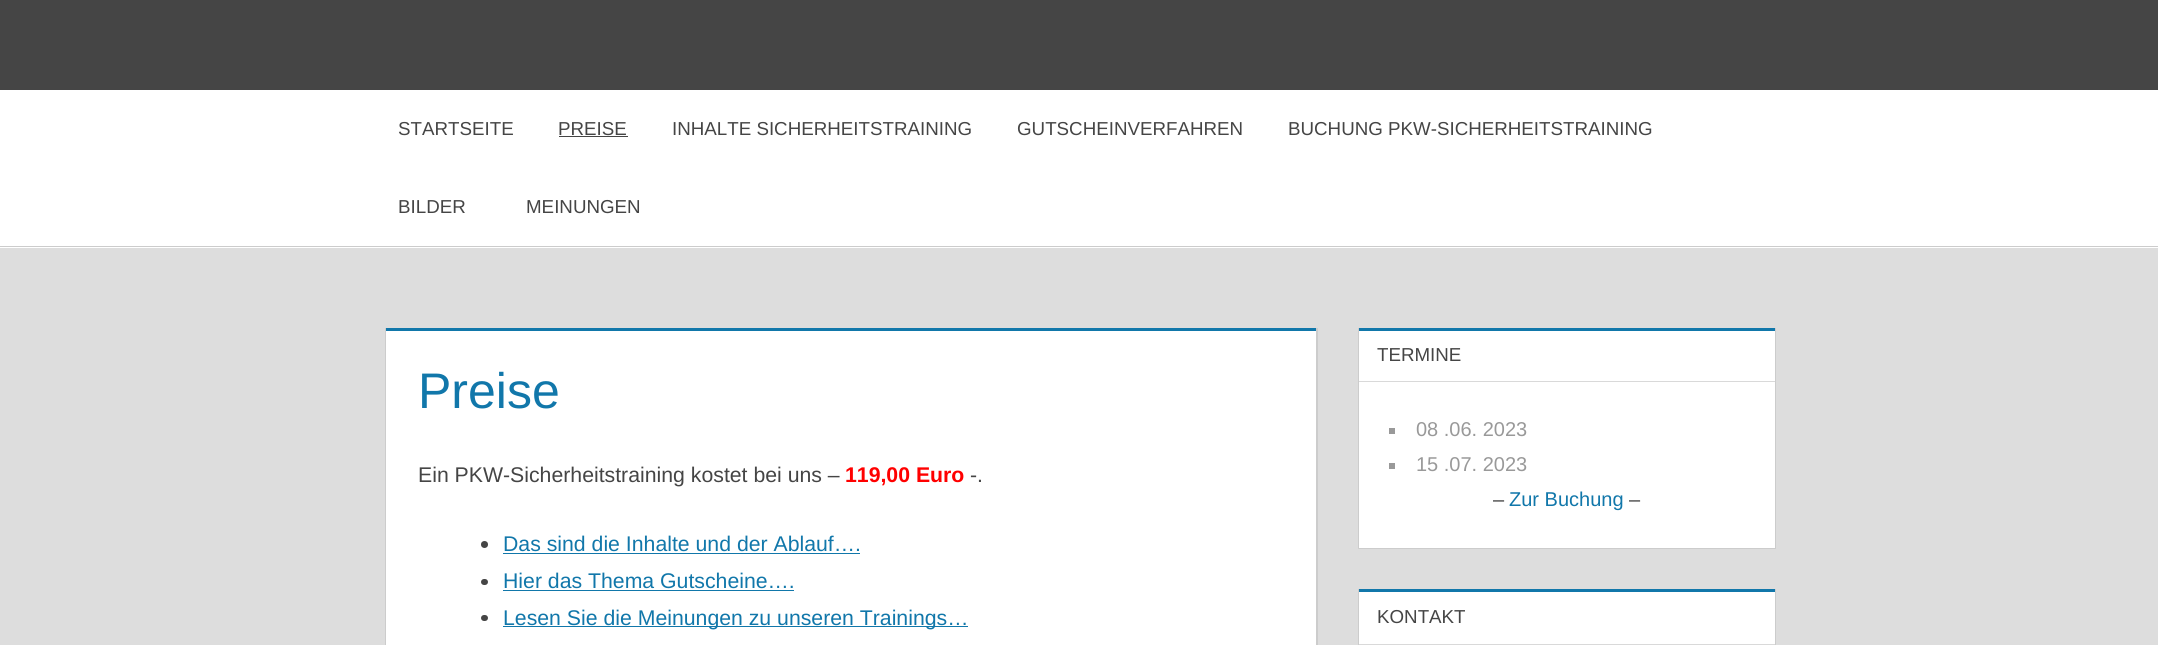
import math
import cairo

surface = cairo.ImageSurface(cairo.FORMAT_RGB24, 2158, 645)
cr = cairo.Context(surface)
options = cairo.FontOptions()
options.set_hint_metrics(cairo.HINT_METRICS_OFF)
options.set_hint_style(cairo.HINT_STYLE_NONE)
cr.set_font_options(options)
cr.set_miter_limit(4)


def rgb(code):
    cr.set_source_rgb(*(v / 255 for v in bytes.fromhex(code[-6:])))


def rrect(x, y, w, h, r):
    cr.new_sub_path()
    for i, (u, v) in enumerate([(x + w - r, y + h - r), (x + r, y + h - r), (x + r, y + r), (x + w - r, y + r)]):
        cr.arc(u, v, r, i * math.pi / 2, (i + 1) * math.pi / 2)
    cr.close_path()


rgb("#dddddd")
cr.paint()
for x, y, w, h, color in [
    (0, 0, 2158, 90, "#454545"),
    (0, 90, 2158, 158, "#ffffff"),
    (0, 246, 2158, 1, "#cccccc"),
    (559, 136, 69, 1, "#454545"),
    (386, 331, 930, 314, "#ffffff"),
    (386, 328, 930, 3, "#1177aa"),
]:
    rgb(color)
    cr.rectangle(x, y, w, h)
    cr.fill()
rgb("#cccccc")
cr.new_path()
cr.move_to(1318, 328)
cr.line_to(1318, 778)
cr.line_to(1316, 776)
cr.line_to(1316, 328)
cr.close_path()
cr.fill()
cr.new_path()
cr.move_to(385, 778)
cr.line_to(385, 328)
cr.line_to(386, 328)
cr.line_to(386, 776)
cr.close_path()
cr.fill()
rgb("#454545")
cr.arc(484.5, 544.5, 3.5, 0, 2 * math.pi)
cr.fill()
rgb("#1177aa")
cr.rectangle(503, 553, 357, 1)
cr.fill()
rgb("#454545")
rrect(481, 579, 7, 6, 3)
cr.fill()
rgb("#1177aa")
cr.rectangle(503, 590, 291, 1)
cr.fill()
rgb("#454545")
rrect(481, 615, 7, 6, 3)
cr.fill()
for x, y, w, h, color in [
    (503, 626, 465, 1, "#1177aa"),
    (1358, 328, 418, 221, "#ffffff"),
    (1359, 328, 416, 3, "#1177aa"),
]:
    rgb(color)
    cr.rectangle(x, y, w, h)
    cr.fill()
rgb("#cccccc")
cr.new_path()
cr.move_to(1776, 328)
cr.line_to(1776, 549)
cr.line_to(1775, 548)
cr.line_to(1775, 328)
cr.close_path()
cr.fill()
cr.set_source_rgba(0, 0, 0, 0.2)
cr.new_path()
cr.move_to(1776, 549)
cr.line_to(1358, 549)
cr.line_to(1359, 548)
cr.line_to(1775, 548)
cr.close_path()
cr.fill()
cr.new_path()
cr.move_to(1358, 549)
cr.line_to(1358, 328)
cr.line_to(1359, 328)
cr.line_to(1359, 548)
cr.close_path()
cr.fill()
for x, y, w, h, color in [
    (1359, 381, 416, 1, "#d9d9d9"),
    (1389, 428, 6, 6, "#999999"),
    (1389, 463, 6, 6, "#999999"),
    (1359, 592, 416, 52, "#ffffff"),
    (1359, 589, 416, 3, "#1177aa"),
]:
    rgb(color)
    cr.rectangle(x, y, w, h)
    cr.fill()
rgb("#cccccc")
cr.new_path()
cr.move_to(1776, 589)
cr.line_to(1776, 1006)
cr.line_to(1775, 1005)
cr.line_to(1775, 589)
cr.close_path()
cr.fill()
cr.new_path()
cr.move_to(1358, 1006)
cr.line_to(1358, 589)
cr.line_to(1359, 589)
cr.line_to(1359, 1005)
cr.close_path()
cr.fill()
rgb("#d9d9d9")
cr.rectangle(1359, 644, 416, 1)
cr.fill()
cr.select_font_face("Liberation Sans")
cr.set_font_size(18.75)
rgb("#454545")
for x, y, s in [
    (398, 135, "STARTSEITE"),
    (558, 135, "PREISE"),
    (672, 135, "INHALTE SICHERHEITSTRAINING"),
    (1017, 135, "GUTSCHEINVERFAHREN"),
    (1288, 135, "BUCHUNG PKW-SICHERHEITSTRAINING"),
    (398, 213, "BILDER"),
    (526, 213, "MEINUNGEN"),
]:
    cr.move_to(x, y)
    cr.show_text(s)
cr.set_font_size(50)
rgb("#1177aa")
cr.move_to(418, 408)
cr.show_text("Preise")
cr.set_font_size(21.25)
rgb("#454545")
cr.move_to(418, 482)
cr.show_text("Ein PKW-Sicherheitstraining kostet bei uns –")
cr.select_font_face("Liberation Sans", cairo.FONT_SLANT_NORMAL, cairo.FONT_WEIGHT_BOLD)
rgb("#ff0000")
cr.move_to(845, 482)
cr.show_text("119,00 Euro")
cr.select_font_face("Liberation Sans")
rgb("#454545")
cr.move_to(970, 482)
cr.show_text("-.")
rgb("#1177aa")
for x, y, s in [
    (503, 551, "Das sind die Inhalte und der Ablauf…."),
    (503, 588, "Hier das Thema Gutscheine…."),
    (503, 625, "Lesen Sie die Meinungen zu unseren Trainings…"),
]:
    cr.move_to(x, y)
    cr.show_text(s)
cr.set_font_size(18.75)
rgb("#454545")
cr.move_to(1377, 361)
cr.show_text("TERMINE")
cr.set_font_size(20)
rgb("#999999")
cr.move_to(1416, 436)
cr.show_text("08 .06. 2023")
cr.move_to(1416, 471)
cr.show_text("15 .07. 2023")
rgb("#454545")
cr.move_to(1493, 506)
cr.show_text("–")
rgb("#1177aa")
cr.move_to(1509, 506)
cr.show_text("Zur Buchung")
rgb("#454545")
cr.move_to(1629, 506)
cr.show_text("–")
cr.set_font_size(18.75)
cr.move_to(1377, 623)
cr.show_text("KONTAKT")
surface.write_to_png("page.png")
